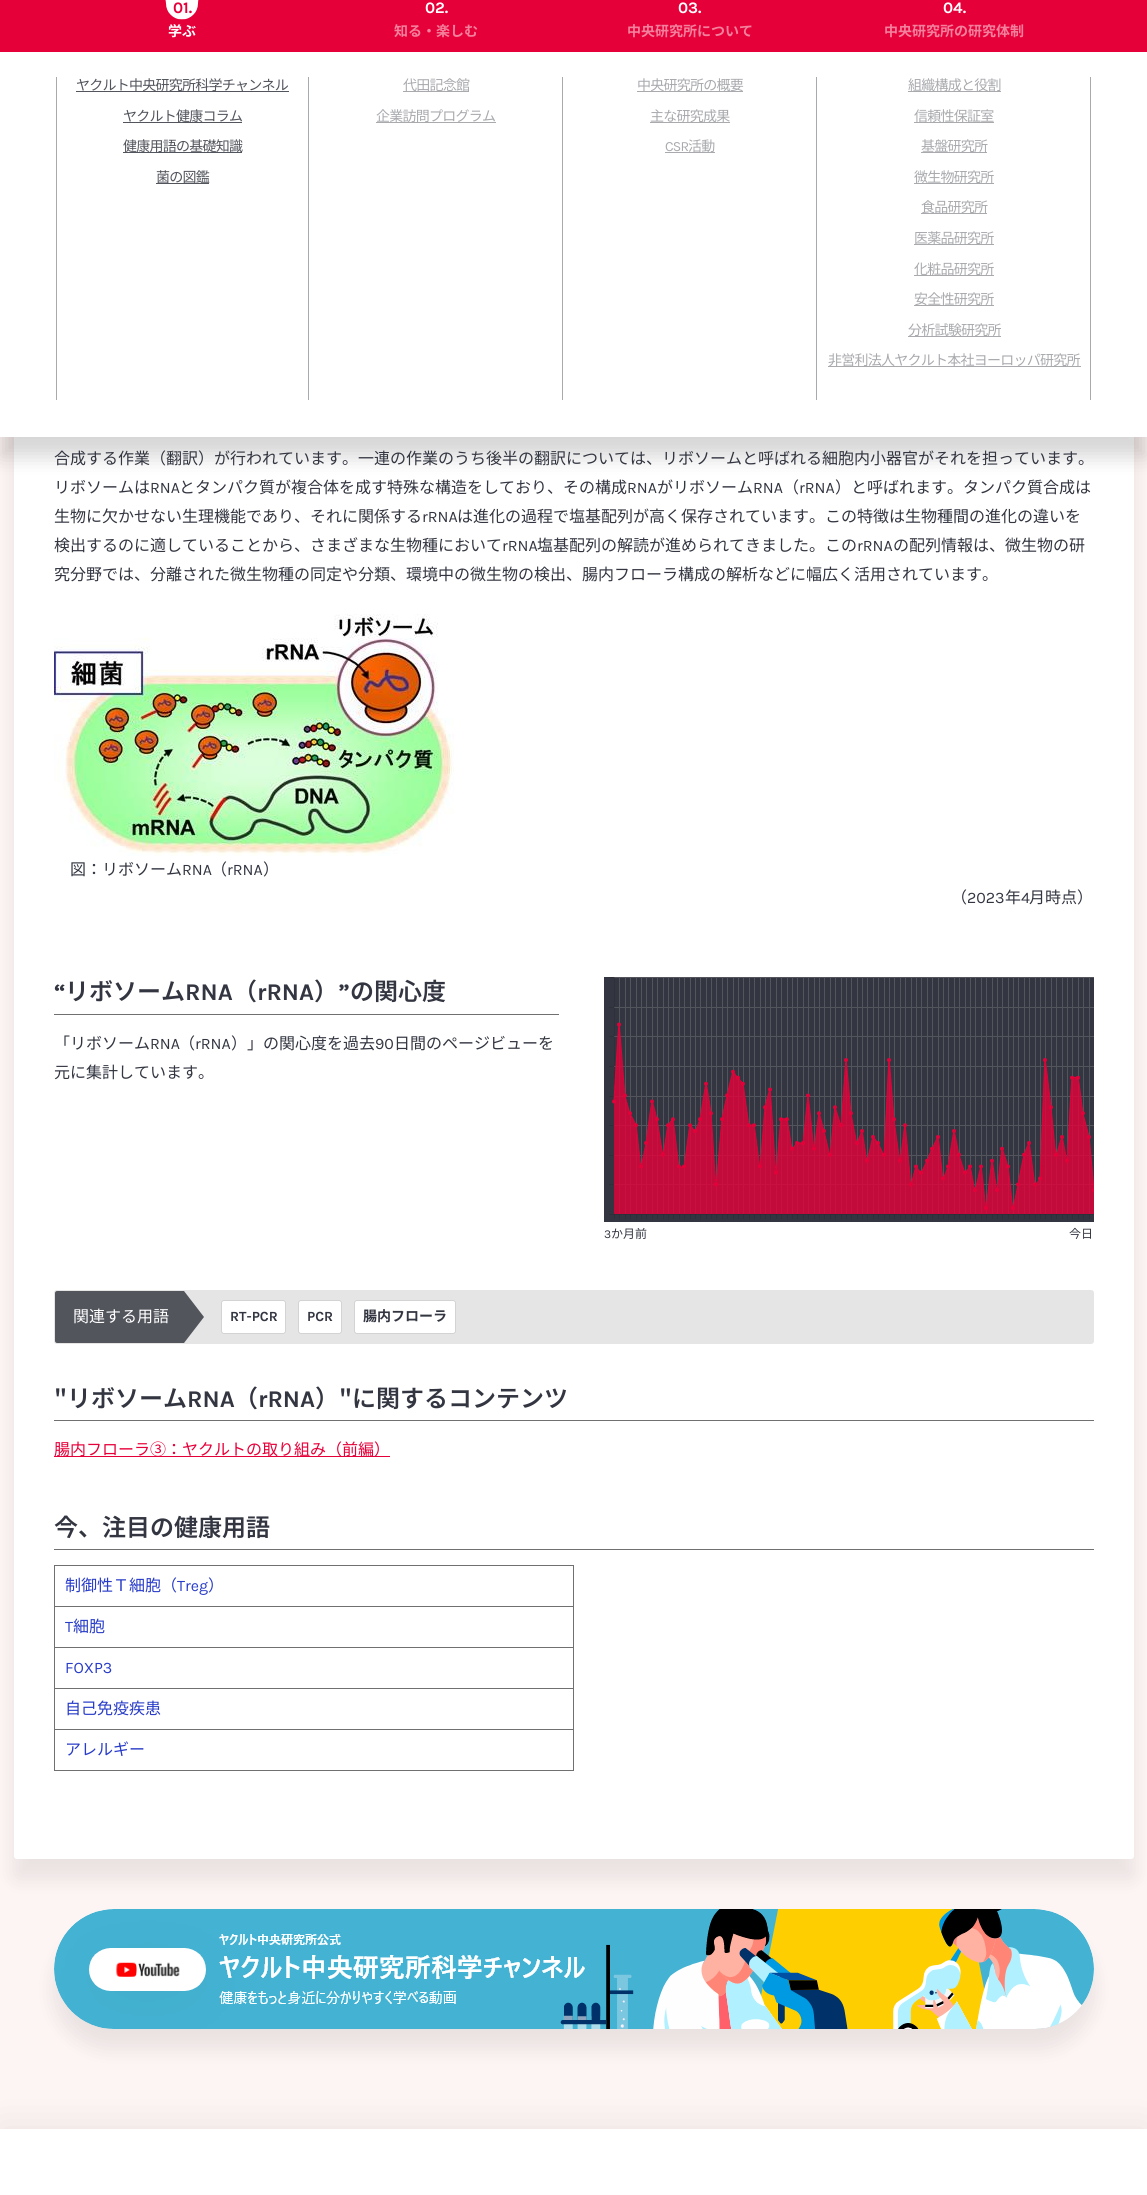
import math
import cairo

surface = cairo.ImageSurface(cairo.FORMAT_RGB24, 1147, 2195)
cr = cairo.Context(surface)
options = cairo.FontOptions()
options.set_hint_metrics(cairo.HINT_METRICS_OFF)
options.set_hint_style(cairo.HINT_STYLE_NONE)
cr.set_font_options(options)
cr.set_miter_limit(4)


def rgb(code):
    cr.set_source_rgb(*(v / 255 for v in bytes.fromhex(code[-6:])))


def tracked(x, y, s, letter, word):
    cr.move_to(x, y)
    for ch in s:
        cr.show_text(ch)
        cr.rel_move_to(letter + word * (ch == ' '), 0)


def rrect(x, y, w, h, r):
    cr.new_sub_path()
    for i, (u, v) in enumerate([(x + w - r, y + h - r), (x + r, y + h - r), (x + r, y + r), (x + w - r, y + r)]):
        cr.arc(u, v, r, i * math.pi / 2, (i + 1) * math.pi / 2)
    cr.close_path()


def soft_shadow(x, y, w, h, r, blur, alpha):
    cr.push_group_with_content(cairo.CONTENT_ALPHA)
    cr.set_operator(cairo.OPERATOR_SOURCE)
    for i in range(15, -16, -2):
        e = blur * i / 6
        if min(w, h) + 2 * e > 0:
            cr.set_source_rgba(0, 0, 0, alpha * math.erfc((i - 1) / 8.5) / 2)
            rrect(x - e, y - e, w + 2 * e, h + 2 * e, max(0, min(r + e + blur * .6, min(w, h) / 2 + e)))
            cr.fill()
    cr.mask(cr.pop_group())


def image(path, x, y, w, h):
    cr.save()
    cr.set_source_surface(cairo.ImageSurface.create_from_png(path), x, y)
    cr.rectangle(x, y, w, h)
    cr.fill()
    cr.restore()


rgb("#fdf5f4")
cr.paint()
rgb("#000000")
soft_shadow(14, 324, 1120, 1555, 3, 10, 0.08)
rgb("#ffffff")
rrect(14, 304, 1120, 1555, 3)
cr.fill()
rgb("#000000")
soft_shadow(0, 8, 1147, 449, 0, 10, 0.16)
rgb("#e60039")
cr.rectangle(0, 0, 1147, 52)
cr.fill()
rgb("#ffffff")
cr.rectangle(0, 52, 1147, 385)
cr.fill()
image("img/1.png", 165, 0, 34, 20)
for x, y, w, h, color in [
    (56, 77, 1, 323, "#a9aaae"),
    (76, 91, 213, 1, "#53555d"),
    (123, 122, 119, 1, "#53555d"),
    (123, 152, 119, 1, "#53555d"),
    (156, 183, 53, 1, "#53555d"),
    (308, 77, 1, 323, "#a9aaae"),
    (403, 91, 66, 1, "#a9aaae"),
    (376, 122, 120, 1, "#a9aaae"),
    (562, 77, 1, 323, "#a9aaae"),
    (637, 91, 106, 1, "#a9aaae"),
    (650, 122, 80, 1, "#a9aaae"),
    (665, 152, 50, 1, "#a9aaae"),
    (816, 77, 1, 323, "#a9aaae"),
    (908, 91, 93, 1, "#a9aaae"),
    (914, 122, 80, 1, "#a9aaae"),
    (921, 152, 66, 1, "#a9aaae"),
    (914, 183, 80, 1, "#a9aaae"),
    (921, 213, 66, 1, "#a9aaae"),
    (914, 244, 80, 1, "#a9aaae"),
    (914, 275, 80, 1, "#a9aaae"),
    (914, 305, 80, 1, "#a9aaae"),
    (908, 336, 93, 1, "#a9aaae"),
    (828, 366, 253, 1, "#a9aaae"),
    (1090, 77, 1, 323, "#a9aaae"),
]:
    rgb(color)
    cr.rectangle(x, y, w, h)
    cr.fill()
image("img/2.png", 54, 614, 400, 242)
rgb("#707070")
cr.rectangle(54, 1014, 505, 1)
cr.fill()
rgb("#333641")
cr.rectangle(604, 977, 490, 245)
cr.fill()
image("img/3.png", 609, 977, 485, 242)
rgb("#e5e5e5")
rrect(54.5, 1290.5, 1039, 53, 2.5)
cr.fill_preserve()
cr.set_line_width(1)
cr.stroke()
rgb("#53555d")
cr.new_path()
cr.move_to(57, 1291)
cr.line_to(184, 1291)
cr.line_to(204, 1317)
cr.line_to(184, 1343)
cr.line_to(57, 1343)
cr.curve_to(56, 1343, 55, 1342, 55, 1341)
cr.line_to(55, 1293)
cr.curve_to(55, 1292, 56, 1291, 57, 1291)
cr.close_path()
cr.fill()
rgb("#ffffff")
rrect(221.5, 1300.5, 64, 33, 2.5)
cr.fill_preserve()
rgb("#d3d3d4")
cr.stroke()
rgb("#ffffff")
rrect(298.5, 1300.5, 43, 33, 2.5)
cr.fill_preserve()
rgb("#d3d3d4")
cr.stroke()
rgb("#ffffff")
rrect(354.5, 1300.5, 101, 33, 2.5)
cr.fill_preserve()
rgb("#d3d3d4")
cr.stroke()
for x, y, w, h, color in [
    (54, 1420, 1040, 1, "#707070"),
    (54, 1456, 336, 1, "#e60039"),
    (54, 1549, 1040, 1, "#707070"),
    (54, 1565, 520, 1, "#707070"),
    (573, 1565, 1, 41, "#707070"),
    (54, 1565, 1, 41, "#707070"),
    (54, 1606, 520, 1, "#707070"),
    (573, 1606, 1, 41, "#707070"),
    (54, 1606, 1, 41, "#707070"),
    (54, 1647, 520, 1, "#707070"),
    (573, 1647, 1, 41, "#707070"),
    (54, 1647, 1, 41, "#707070"),
    (54, 1688, 520, 1, "#707070"),
    (573, 1688, 1, 41, "#707070"),
    (54, 1688, 1, 41, "#707070"),
]:
    rgb(color)
    cr.rectangle(x, y, w, h)
    cr.fill()
cr.rectangle(54.5, 1729.5, 519, 41)
cr.stroke()
rgb("#000000")
soft_shadow(54, 1929, 1040, 120, 60, 10, 0.08)
image("img/4.png", 54, 1909, 1040, 120)
soft_shadow(0, 2129, 1147, 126, 0, 20, 0.08)
rgb("#ffffff")
cr.rectangle(0, 2129, 1147, 66)
cr.fill()
cr.select_font_face("Karla", cairo.FONT_SLANT_NORMAL, cairo.FONT_WEIGHT_BOLD)
cr.set_font_size(16)
rgb("#e60039")
cr.move_to(173, 13)
cr.show_text("01.")
cr.select_font_face("Noto Sans JP", cairo.FONT_SLANT_NORMAL, cairo.FONT_WEIGHT_BOLD)
cr.set_font_size(14)
rgb("#ffffff")
cr.move_to(168, 36)
cr.show_text("学ぶ")
cr.select_font_face("Noto Sans JP")
rgb("#53555d")
for x, y, s in [
    (76, 90, "ヤクルト中央研究所科学チャンネル"),
    (123, 121, "ヤクルト健康コラム"),
    (123, 151, "健康用語の基礎知識"),
    (156, 182, "菌の図鑑"),
]:
    tracked(x, y, s, -0.75, 0)
cr.select_font_face("Karla", cairo.FONT_SLANT_NORMAL, cairo.FONT_WEIGHT_BOLD)
cr.set_font_size(16)
rgb("#ffffff")
cr.move_to(425, 13)
cr.show_text("02.")
cr.select_font_face("Noto Sans JP", cairo.FONT_SLANT_NORMAL, cairo.FONT_WEIGHT_BOLD)
cr.set_font_size(14)
rgb("#f3809c")
cr.move_to(394, 36)
cr.show_text("知る・楽しむ")
cr.select_font_face("Noto Sans JP")
rgb("#a9aaae")
tracked(403, 90, "代田記念館", -0.75, 0)
tracked(376, 121, "企業訪問プログラム", -0.75, 0)
cr.select_font_face("Karla", cairo.FONT_SLANT_NORMAL, cairo.FONT_WEIGHT_BOLD)
cr.set_font_size(16)
rgb("#ffffff")
cr.move_to(678, 13)
cr.show_text("03.")
cr.select_font_face("Noto Sans JP", cairo.FONT_SLANT_NORMAL, cairo.FONT_WEIGHT_BOLD)
cr.set_font_size(14)
rgb("#f3809c")
cr.move_to(627, 36)
cr.show_text("中央研究所について")
cr.select_font_face("Noto Sans JP")
rgb("#a9aaae")
tracked(637, 90, "中央研究所の概要", -0.75, 0)
tracked(650, 121, "主な研究成果", -0.75, 0)
cr.select_font_face("Karla")
tracked(665, 151, "CSR", -0.75, 0)
cr.select_font_face("Noto Sans JP")
tracked(688, 151, "活動", -0.75, 0)
cr.select_font_face("Karla", cairo.FONT_SLANT_NORMAL, cairo.FONT_WEIGHT_BOLD)
cr.set_font_size(16)
rgb("#ffffff")
cr.move_to(943, 13)
cr.show_text("04.")
cr.select_font_face("Noto Sans JP", cairo.FONT_SLANT_NORMAL, cairo.FONT_WEIGHT_BOLD)
cr.set_font_size(14)
rgb("#f3809c")
cr.move_to(884, 36)
cr.show_text("中央研究所の研究体制")
cr.select_font_face("Noto Sans JP")
rgb("#a9aaae")
for x, y, s in [
    (908, 90, "組織構成と役割"),
    (914, 121, "信頼性保証室"),
    (921, 151, "基盤研究所"),
    (914, 182, "微生物研究所"),
    (921, 212, "食品研究所"),
    (914, 243, "医薬品研究所"),
    (914, 274, "化粧品研究所"),
    (914, 304, "安全性研究所"),
    (908, 335, "分析試験研究所"),
    (828, 365, "非営利法人ヤクルト本社ヨーロッパ研究所"),
]:
    tracked(x, y, s, -0.75, 0)
cr.set_font_size(16)
rgb("#333641")
cr.move_to(54, 464)
cr.show_text("合成する作業（翻訳）が行われています。一連の作業のうち後半の翻訳については、リボソームと呼ばれる細胞内小器官がそれを担っています。")
cr.move_to(54, 493)
cr.show_text("リボソームは")
cr.select_font_face("Karla")
cr.move_to(150, 493)
cr.show_text("RNA")
cr.select_font_face("Noto Sans JP")
cr.move_to(179, 493)
cr.show_text("とタンパク質が複合体を成す特殊な構造をしており、その構成")
cr.select_font_face("Karla")
cr.move_to(627, 493)
cr.show_text("RNA")
cr.select_font_face("Noto Sans JP")
cr.move_to(657, 493)
cr.show_text("がリボソーム")
cr.select_font_face("Karla")
cr.move_to(753, 493)
cr.show_text("RNA")
cr.select_font_face("Noto Sans JP")
cr.move_to(783, 493)
cr.show_text("（")
cr.select_font_face("Karla")
cr.move_to(799, 493)
cr.show_text("rRNA")
cr.select_font_face("Noto Sans JP")
cr.move_to(835, 493)
cr.show_text("）と呼ばれます。タンパク質合成は")
cr.move_to(54, 522)
cr.show_text("生物に欠かせない生理機能であり、それに関係する")
cr.select_font_face("Karla")
cr.move_to(422, 522)
cr.show_text("rRNA")
cr.select_font_face("Noto Sans JP")
cr.move_to(457, 522)
cr.show_text("は進化の過程で塩基配列が高く保存されています。この特徴は生物種間の進化の違いを")
cr.move_to(54, 551)
cr.show_text("検出するのに適していることから、さまざまな生物種において")
cr.select_font_face("Karla")
cr.move_to(502, 551)
cr.show_text("rRNA")
cr.select_font_face("Noto Sans JP")
cr.move_to(537, 551)
cr.show_text("塩基配列の解読が進められてきました。この")
cr.select_font_face("Karla")
cr.move_to(857, 551)
cr.show_text("rRNA")
cr.select_font_face("Noto Sans JP")
for x, y, s in [
    (893, 551, "の配列情報は、微生物の研"),
    (54, 580, "究分野では、分離された微生物種の同定や分類、環境中の微生物の検出、腸内フローラ構成の解析などに幅広く活用されています。"),
    (70, 875, "図：リボソーム"),
]:
    cr.move_to(x, y)
    cr.show_text(s)
cr.select_font_face("Karla")
cr.move_to(182, 875)
cr.show_text("RNA")
cr.select_font_face("Noto Sans JP")
cr.move_to(211, 875)
cr.show_text("（")
cr.select_font_face("Karla")
cr.move_to(227, 875)
cr.show_text("rRNA")
cr.select_font_face("Noto Sans JP")
cr.move_to(263, 875)
cr.show_text("）")
cr.move_to(951, 903)
cr.show_text("（")
cr.select_font_face("Karla")
cr.move_to(967, 903)
cr.show_text("2023")
cr.select_font_face("Noto Sans JP")
cr.move_to(1005, 903)
cr.show_text("年")
cr.select_font_face("Karla")
cr.move_to(1021, 903)
cr.show_text("4")
cr.select_font_face("Noto Sans JP")
cr.move_to(1029, 903)
cr.show_text("月時点）")
cr.select_font_face("Karla", cairo.FONT_SLANT_NORMAL, cairo.FONT_WEIGHT_BOLD)
cr.set_font_size(24)
cr.move_to(54, 1000)
cr.show_text("“")
cr.select_font_face("Noto Sans JP SemiBold")
cr.move_to(65, 1000)
cr.show_text("リボソーム")
cr.select_font_face("Karla", cairo.FONT_SLANT_NORMAL, cairo.FONT_WEIGHT_BOLD)
cr.move_to(185, 1000)
cr.show_text("RNA")
cr.select_font_face("Noto Sans JP SemiBold")
cr.move_to(233, 1000)
cr.show_text("（")
cr.select_font_face("Karla", cairo.FONT_SLANT_NORMAL, cairo.FONT_WEIGHT_BOLD)
cr.move_to(257, 1000)
cr.show_text("rRNA")
cr.select_font_face("Noto Sans JP SemiBold")
cr.move_to(314, 1000)
cr.show_text("）")
cr.select_font_face("Karla", cairo.FONT_SLANT_NORMAL, cairo.FONT_WEIGHT_BOLD)
cr.move_to(338, 1000)
cr.show_text("”")
cr.select_font_face("Noto Sans JP SemiBold")
cr.move_to(350, 1000)
cr.show_text("の関心度")
cr.select_font_face("Noto Sans JP")
cr.set_font_size(16)
cr.move_to(54, 1049)
cr.show_text("「リボソーム")
cr.select_font_face("Karla")
cr.move_to(150, 1049)
cr.show_text("RNA")
cr.select_font_face("Noto Sans JP")
cr.move_to(179, 1049)
cr.show_text("（")
cr.select_font_face("Karla")
cr.move_to(195, 1049)
cr.show_text("rRNA")
cr.select_font_face("Noto Sans JP")
cr.move_to(231, 1049)
cr.show_text("）」の関心度を過去")
cr.select_font_face("Karla")
cr.move_to(375, 1049)
cr.show_text("90")
cr.select_font_face("Noto Sans JP")
cr.move_to(394, 1049)
cr.show_text("日間のページビューを")
cr.move_to(54, 1078)
cr.show_text("元に集計しています。")
cr.select_font_face("Karla")
cr.set_font_size(12)
cr.move_to(604, 1238)
cr.show_text("3")
cr.select_font_face("Noto Sans JP")
cr.move_to(611, 1238)
cr.show_text("か月前")
cr.move_to(1069, 1238)
cr.show_text("今日")
cr.set_font_size(16)
rgb("#ffffff")
cr.move_to(73, 1322)
cr.show_text("関連する用語")
cr.select_font_face("Karla", cairo.FONT_SLANT_NORMAL, cairo.FONT_WEIGHT_BOLD)
cr.set_font_size(14)
rgb("#333641")
cr.move_to(230, 1321)
cr.show_text("RT-PCR")
cr.move_to(307, 1321)
cr.show_text("PCR")
cr.select_font_face("Noto Sans JP", cairo.FONT_SLANT_NORMAL, cairo.FONT_WEIGHT_BOLD)
cr.move_to(363, 1321)
cr.show_text("腸内フローラ")
cr.select_font_face("Noto Sans JP SemiBold")
cr.set_font_size(24)
cr.move_to(54, 1407)
cr.show_text("\"リボソーム")
cr.select_font_face("Karla", cairo.FONT_SLANT_NORMAL, cairo.FONT_WEIGHT_BOLD)
cr.move_to(187, 1407)
cr.show_text("RNA")
cr.select_font_face("Noto Sans JP SemiBold")
cr.move_to(234, 1407)
cr.show_text("（")
cr.select_font_face("Karla", cairo.FONT_SLANT_NORMAL, cairo.FONT_WEIGHT_BOLD)
cr.move_to(258, 1407)
cr.show_text("rRNA")
cr.select_font_face("Noto Sans JP SemiBold")
cr.move_to(315, 1407)
cr.show_text("）\"に関するコンテンツ")
cr.select_font_face("Noto Sans JP")
cr.set_font_size(16)
rgb("#e60039")
cr.move_to(54, 1455)
cr.show_text("腸内フローラ③：ヤクルトの取り組み（前編）")
cr.select_font_face("Noto Sans JP SemiBold")
cr.set_font_size(24)
rgb("#333641")
cr.move_to(54, 1536)
cr.show_text("今、注目の健康用語")
cr.select_font_face("Noto Sans JP")
cr.set_font_size(16)
rgb("#283cc8")
cr.move_to(65, 1591)
cr.show_text("制御性Ｔ細胞（")
cr.select_font_face("Karla")
cr.move_to(177, 1591)
cr.show_text("Treg")
cr.select_font_face("Noto Sans JP")
cr.move_to(208, 1591)
cr.show_text("）")
cr.select_font_face("Karla")
cr.move_to(65, 1632)
cr.show_text("T")
cr.select_font_face("Noto Sans JP")
cr.move_to(73, 1632)
cr.show_text("細胞")
cr.select_font_face("Karla")
cr.move_to(65, 1673)
cr.show_text("FOXP3")
cr.select_font_face("Noto Sans JP")
cr.move_to(65, 1714)
cr.show_text("自己免疫疾患")
cr.move_to(65, 1755)
cr.show_text("アレルギー")
surface.write_to_png("page.png")
